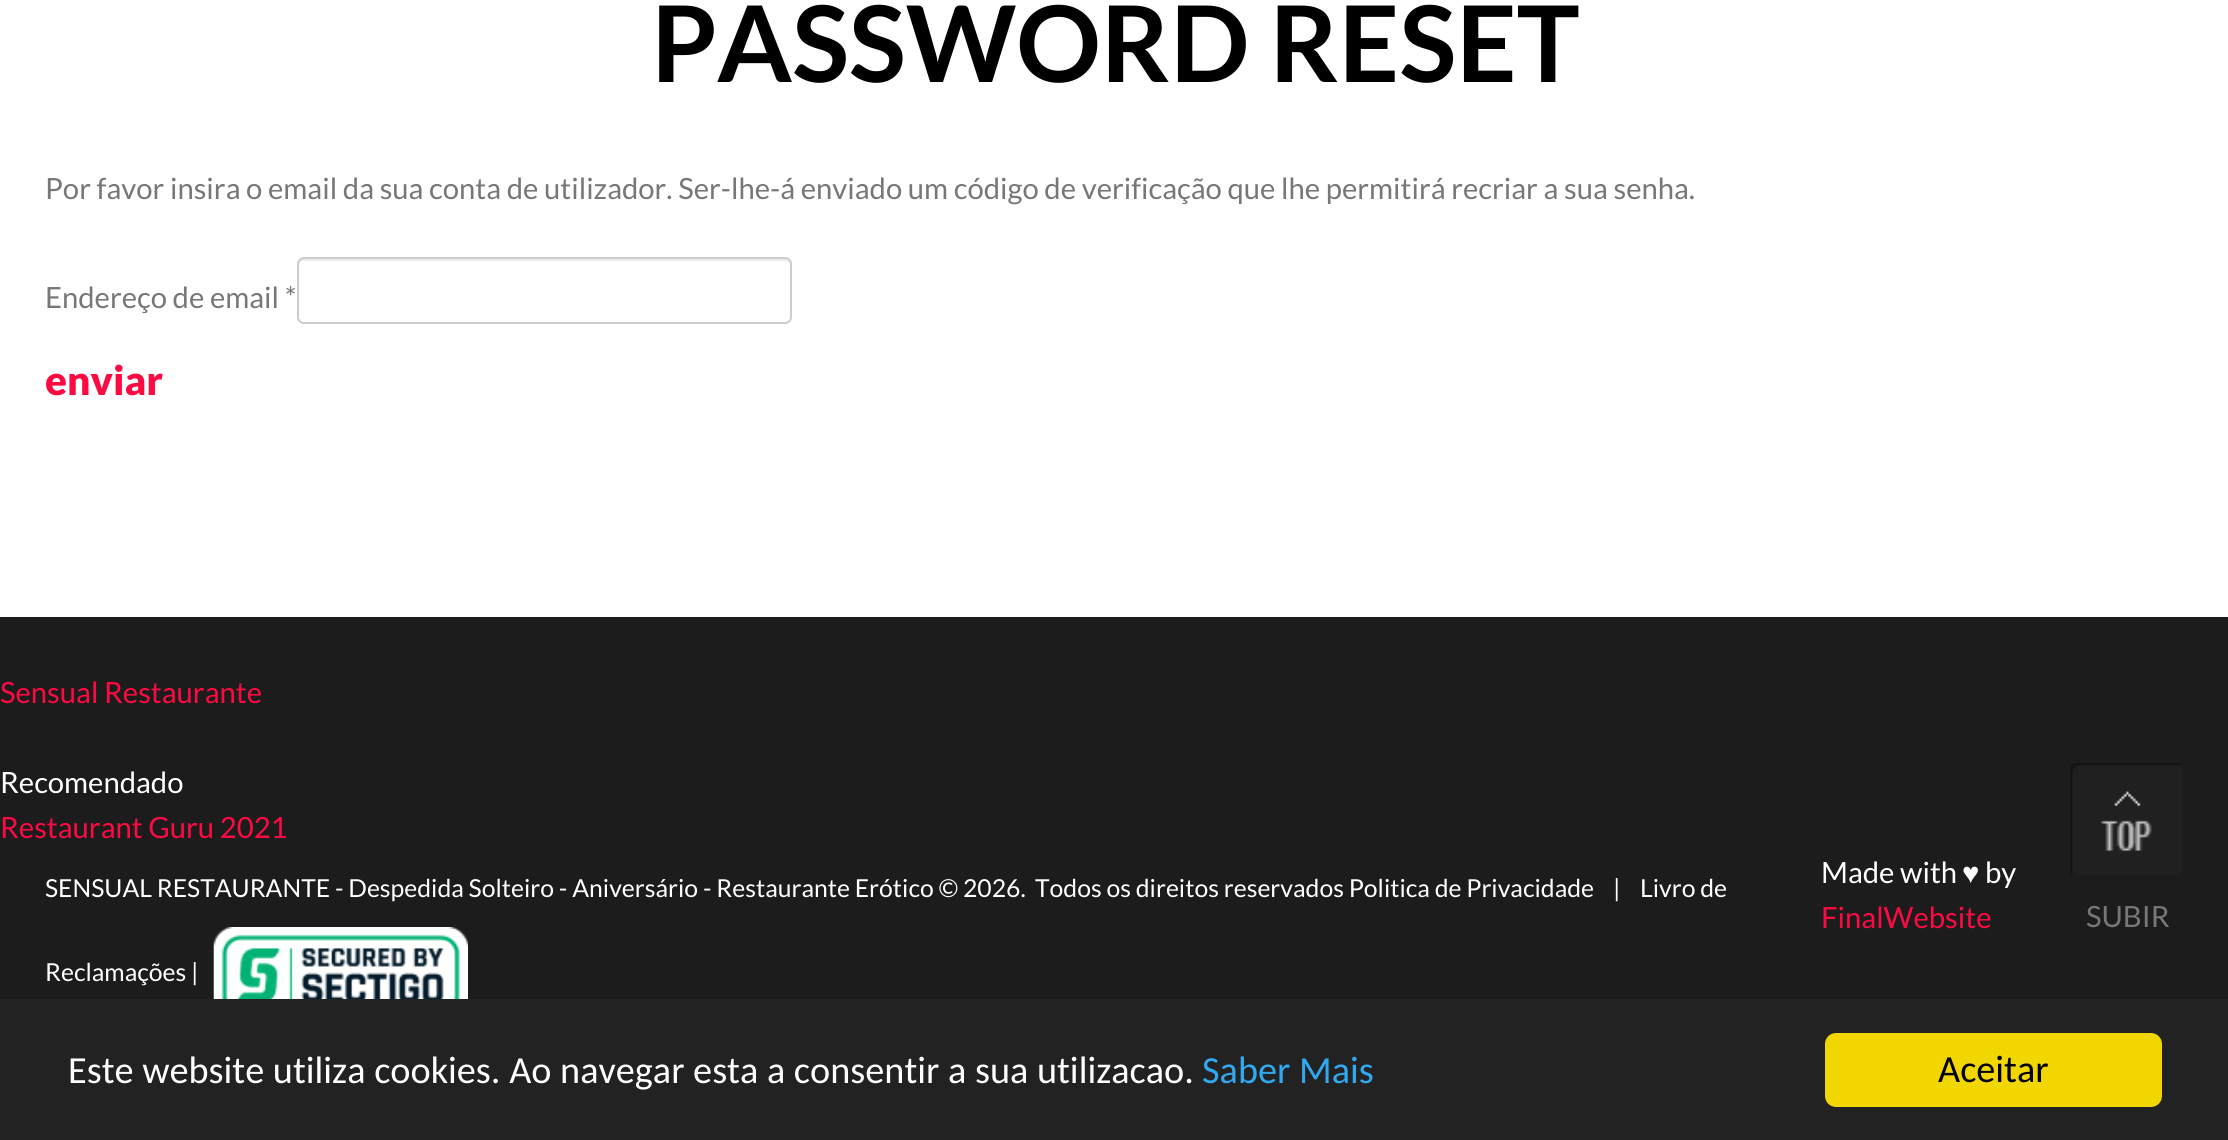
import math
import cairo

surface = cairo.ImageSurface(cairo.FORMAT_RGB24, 2228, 1140)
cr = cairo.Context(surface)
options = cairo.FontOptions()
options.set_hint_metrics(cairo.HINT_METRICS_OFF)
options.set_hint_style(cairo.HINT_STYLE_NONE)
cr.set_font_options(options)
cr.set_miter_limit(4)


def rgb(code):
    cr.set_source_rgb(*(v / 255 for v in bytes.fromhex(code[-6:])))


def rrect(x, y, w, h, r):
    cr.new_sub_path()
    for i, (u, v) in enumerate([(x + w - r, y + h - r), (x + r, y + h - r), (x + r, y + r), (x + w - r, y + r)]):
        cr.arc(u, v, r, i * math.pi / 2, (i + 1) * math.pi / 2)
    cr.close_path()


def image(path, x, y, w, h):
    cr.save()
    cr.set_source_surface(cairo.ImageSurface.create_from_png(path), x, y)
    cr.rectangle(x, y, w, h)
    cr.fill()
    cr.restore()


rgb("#ffffff")
cr.paint()
rgb("#ececec")
cr.new_path()
cr.move_to(304, 261)
cr.line_to(785, 261)
cr.curve_to(788, 261, 790, 263, 790, 266)
cr.line_to(790, 264)
cr.curve_to(790, 261, 788, 259, 785, 259)
cr.line_to(304, 259)
cr.curve_to(301, 259, 299, 261, 299, 264)
cr.line_to(299, 266)
cr.curve_to(299, 263, 301, 261, 304, 261)
cr.close_path()
cr.fill()
rrect(298, 258, 493, 65, 6)
rgb("#cccccc")
cr.stroke()
rgb("#1c1c1c")
cr.rectangle(0, 617, 2228, 382)
cr.fill()
image("img/1.png", 213, 927, 255, 72)
image("img/2.png", 2070, 763, 112, 112)
rgb("#222222")
cr.rectangle(0, 999, 2228, 141)
cr.fill()
rgb("#f1d600")
rrect(1825, 1033, 337, 74, 11)
cr.fill()
cr.select_font_face("Lato", cairo.FONT_SLANT_NORMAL, cairo.FONT_WEIGHT_BOLD)
cr.set_font_size(105.75)
rgb("#000000")
cr.move_to(651, 82)
cr.show_text("PASSWORD RESET")
cr.select_font_face("Lato")
cr.set_font_size(29.25)
rgb("#777777")
cr.move_to(45, 199)
cr.show_text("Por favor insira o email da sua conta de utilizador. Ser-lhe-á enviado um código de verificação que lhe permitirá recriar a sua senha.")
cr.move_to(45, 308)
cr.show_text("Endereço de email *")
cr.select_font_face("Lato Black")
cr.set_font_size(40.5)
rgb("#fd0a43")
cr.move_to(45, 395)
cr.show_text("enviar")
cr.select_font_face("Lato")
cr.set_font_size(29.25)
cr.move_to(0, 703)
cr.show_text("Sensual Restaurante")
rgb("#ffffff")
cr.move_to(0, 793)
cr.show_text("Recomendado")
rgb("#fd0a43")
cr.move_to(0, 838)
cr.show_text("Restaurant Guru 2021")
rgb("#ffffff")
cr.move_to(1821, 883)
cr.show_text("Made with")
cr.select_font_face("Liberation Sans")
cr.move_to(1962, 883)
cr.show_text("♥")
cr.select_font_face("Lato")
cr.move_to(1985, 883)
cr.show_text("by")
cr.set_font_size(24.75)
for x, y, s in [
    (45, 897, "SENSUAL RESTAURANTE - Despedida Solteiro - Aniversário - Restaurante Erótico © 2026."),
    (1035, 897, "Todos os direitos reservados Politica de Privacidade"),
    (1613, 897, "|"),
    (1640, 897, "Livro de"),
    (45, 981, "Reclamações |"),
]:
    cr.move_to(x, y)
    cr.show_text(s)
cr.set_font_size(29.25)
rgb("#fd0a43")
cr.move_to(1821, 928)
cr.show_text("FinalWebsite")
rgb("#777777")
cr.move_to(2086, 927)
cr.show_text("SUBIR")
cr.select_font_face("Carlito")
cr.set_font_size(38.25)
rgb("#ffffff")
cr.move_to(68, 1083)
cr.show_text("Este website utiliza cookies. Ao navegar esta a consentir a sua utilizacao.")
rgb("#31a8f0")
cr.move_to(1202, 1083)
cr.show_text("Saber Mais")
rgb("#000000")
cr.move_to(1938, 1082)
cr.show_text("Aceitar")
surface.write_to_png("page.png")
